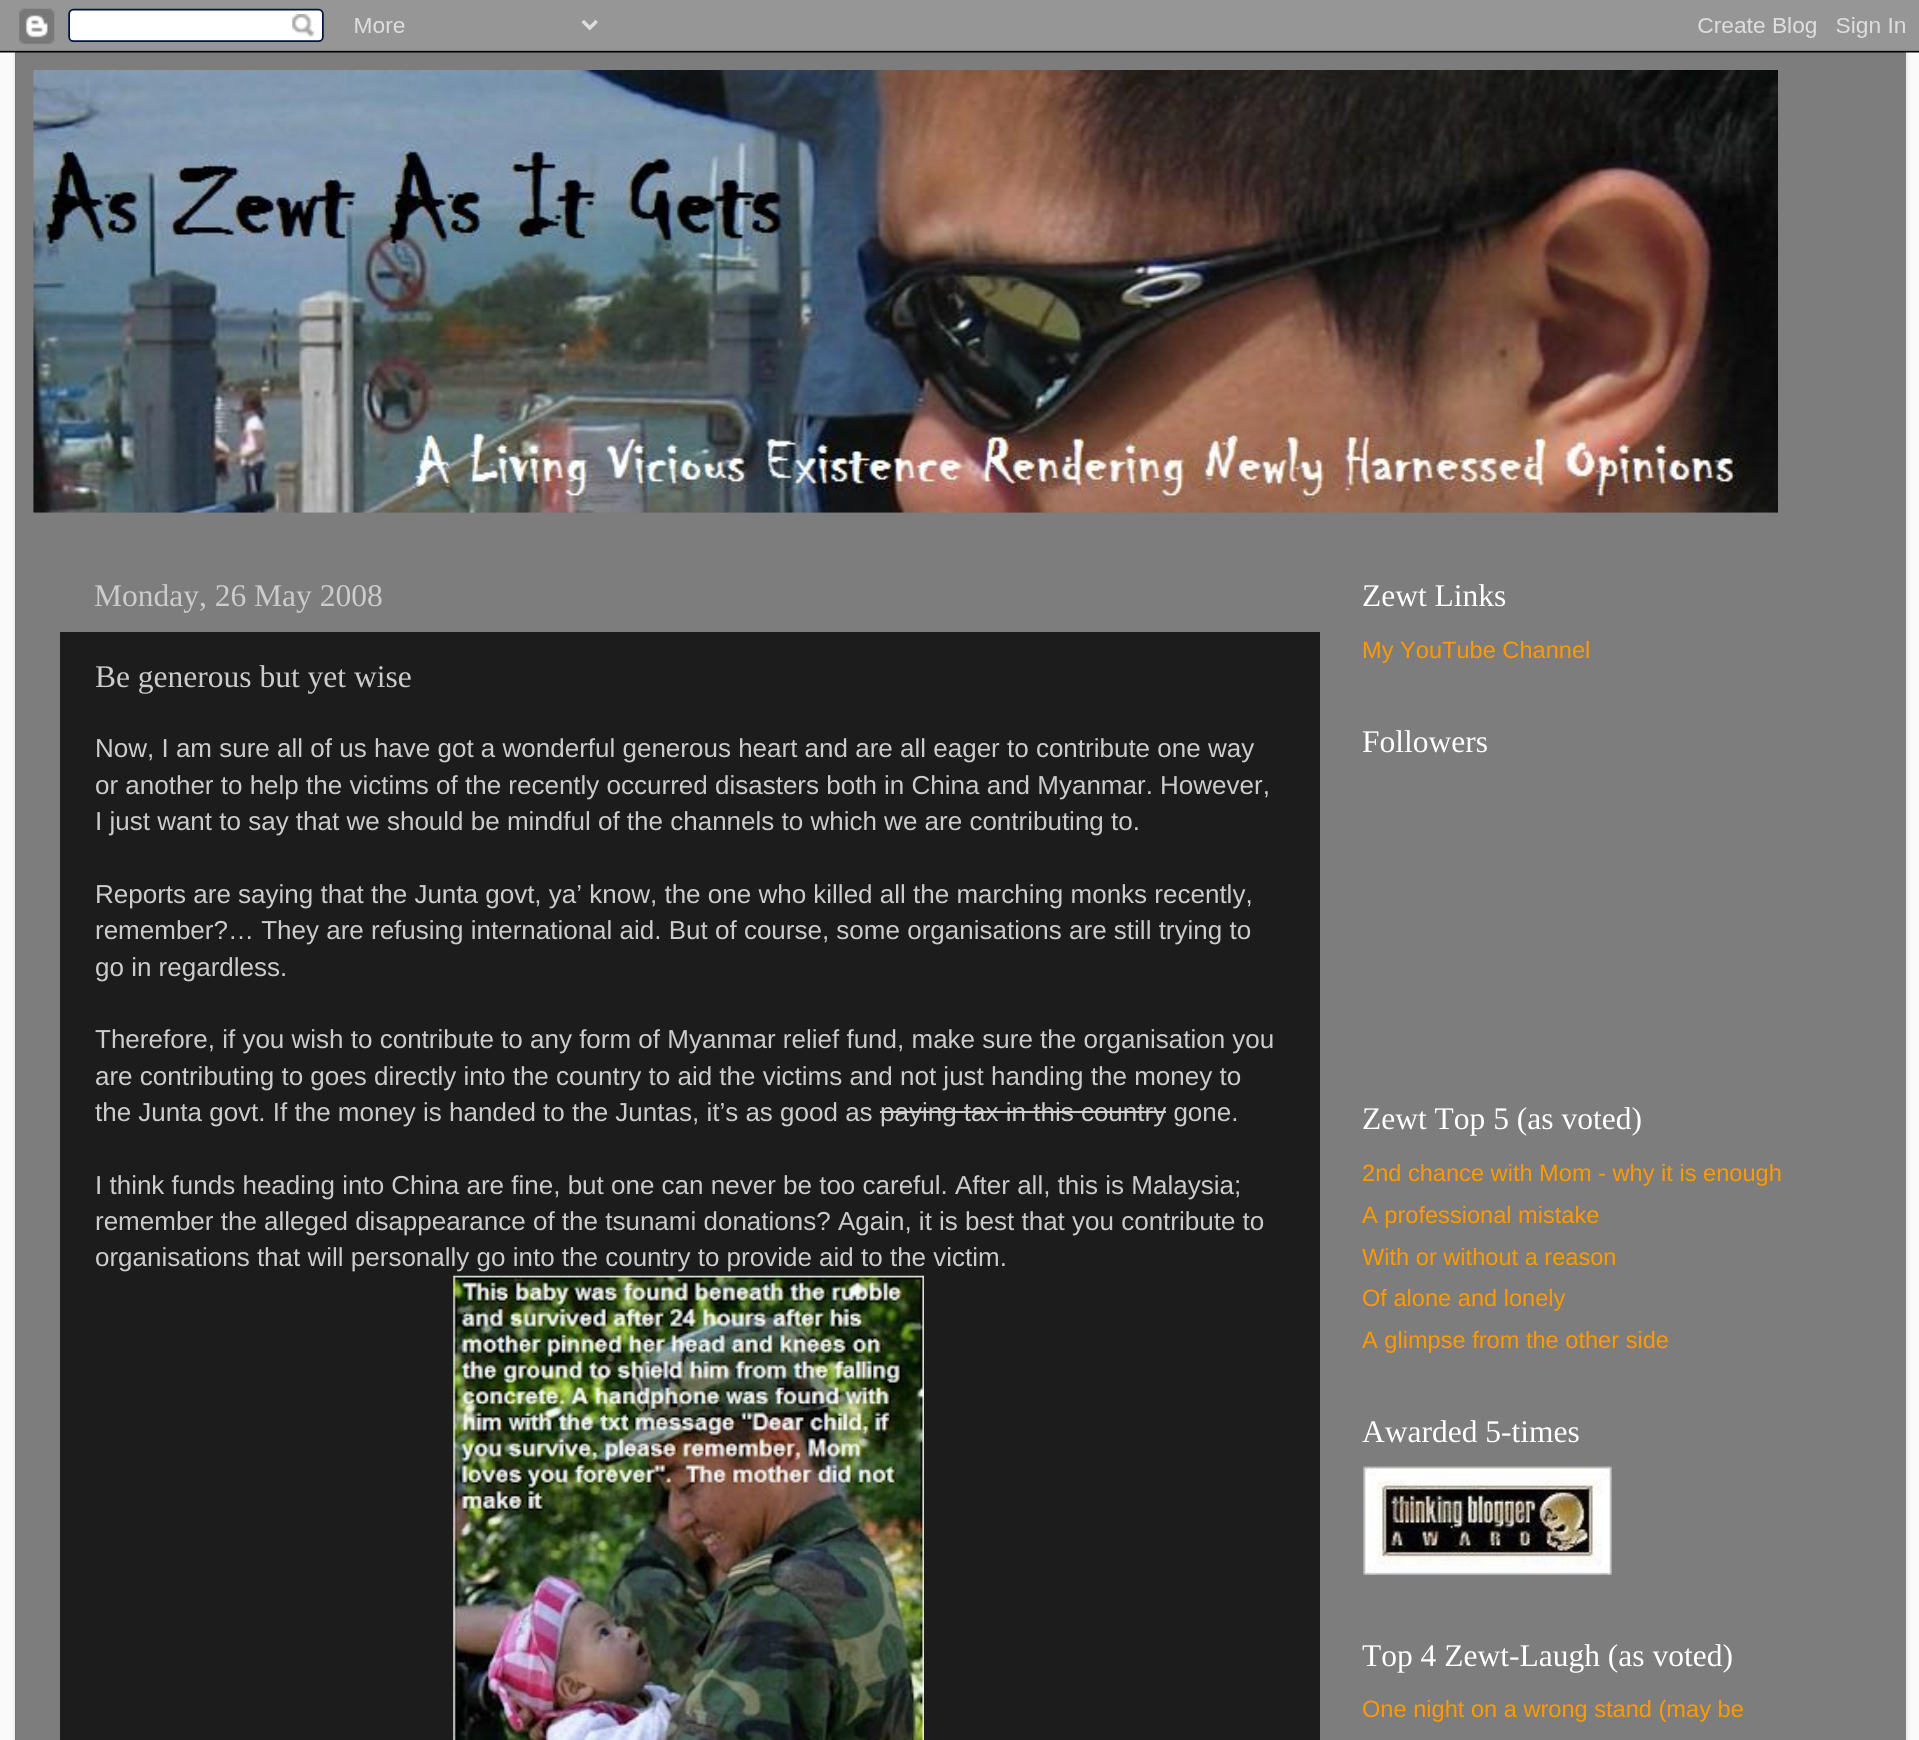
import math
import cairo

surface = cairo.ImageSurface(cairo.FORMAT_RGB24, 1919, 1740)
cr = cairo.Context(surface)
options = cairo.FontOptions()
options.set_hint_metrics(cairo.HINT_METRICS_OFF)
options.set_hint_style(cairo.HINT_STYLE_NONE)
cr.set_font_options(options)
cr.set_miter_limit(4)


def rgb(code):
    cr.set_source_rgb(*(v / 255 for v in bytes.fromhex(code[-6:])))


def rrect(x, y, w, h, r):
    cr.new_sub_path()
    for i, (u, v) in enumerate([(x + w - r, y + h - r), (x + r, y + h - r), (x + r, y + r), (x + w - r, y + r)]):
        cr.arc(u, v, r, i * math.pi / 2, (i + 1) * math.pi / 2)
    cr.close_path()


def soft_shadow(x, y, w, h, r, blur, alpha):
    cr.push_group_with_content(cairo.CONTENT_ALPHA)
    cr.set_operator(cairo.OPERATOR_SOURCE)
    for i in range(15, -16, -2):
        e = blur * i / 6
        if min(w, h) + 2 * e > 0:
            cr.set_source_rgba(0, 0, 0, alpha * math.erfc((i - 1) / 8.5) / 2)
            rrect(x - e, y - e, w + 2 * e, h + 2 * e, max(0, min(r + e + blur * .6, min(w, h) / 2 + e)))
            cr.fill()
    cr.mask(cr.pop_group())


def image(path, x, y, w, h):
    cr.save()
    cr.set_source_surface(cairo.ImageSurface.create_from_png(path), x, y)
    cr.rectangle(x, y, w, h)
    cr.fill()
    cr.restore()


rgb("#fafafa")
cr.paint()
cr.save()
cr.set_fill_rule(cairo.FILL_RULE_EVEN_ODD)
cr.new_path()
cr.move_to(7, 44)
cr.line_to(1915, 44)
cr.line_to(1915, 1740)
cr.line_to(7, 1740)
cr.close_path()
cr.move_to(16, 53)
cr.line_to(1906, 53)
cr.line_to(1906, 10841)
cr.line_to(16, 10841)
cr.close_path()
cr.clip()
rgb("#000000")
soft_shadow(16, 53, 1890, 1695, 0, 2.5, 0.15)
cr.restore()
cr.set_source_rgba(0, 0, 0, 0.5)
cr.rectangle(15, 52, 1891, 1688)
cr.fill()
image("img/1.png", 0, 0, 1919, 53)
image("img/2.png", 33, 70, 1745, 443)
rgb("#1c1c1c")
cr.rectangle(60, 632, 1260, 1108)
cr.fill()
rgb("#cccccc")
cr.rectangle(880, 1111, 286, 2)
cr.fill()
image("img/3.png", 453, 1275, 471, 465)
image("img/4.png", 1363, 1466, 249, 109)
cr.select_font_face("Liberation Serif")
cr.set_font_size(31.5)
cr.move_to(94, 606)
cr.show_text("Monday, 26 May 2008")
cr.move_to(95, 687)
cr.show_text("Be generous but yet wise")
cr.select_font_face("Liberation Sans")
cr.set_font_size(26)
for x, y, s in [
    (95, 757, "Now, I am sure all of us have got a wonderful generous heart and are all eager to contribute one way"),
    (95, 794, "or another to help the victims of the recently occurred disasters both in China and Myanmar. However,"),
    (95, 830, "I just want to say that we should be mindful of the channels to which we are contributing to."),
    (95, 903, "Reports are saying that the Junta govt, ya’ know, the one who killed all the marching monks recently,"),
    (95, 939, "remember?… They are refusing international aid. But of course, some organisations are still trying to"),
    (95, 976, "go in regardless."),
    (95, 1048, "Therefore, if you wish to contribute to any form of Myanmar relief fund, make sure the organisation you"),
    (95, 1085, "are contributing to goes directly into the country to aid the victims and not just handing the money to"),
    (95, 1121, "the Junta govt. If the money is handed to the Juntas, it’s as good as"),
    (880, 1121, "paying tax in this country gone."),
    (95, 1194, "I think funds heading into China are fine, but one can never be too careful. After all, this is Malaysia;"),
    (95, 1230, "remember the alleged disappearance of the tsunami donations? Again, it is best that you contribute to"),
    (95, 1266, "organisations that will personally go into the country to provide aid to the victim."),
]:
    cr.move_to(x, y)
    cr.show_text(s)
cr.select_font_face("Liberation Serif")
cr.set_font_size(31.5)
rgb("#ffffff")
cr.move_to(1362, 606)
cr.show_text("Zewt Links")
cr.select_font_face("Liberation Sans")
cr.set_font_size(23.6)
rgb("#ff9900")
cr.move_to(1362, 658)
cr.show_text("My YouTube Channel")
cr.select_font_face("Liberation Serif")
cr.set_font_size(31.5)
rgb("#ffffff")
cr.move_to(1362, 752)
cr.show_text("Followers")
cr.move_to(1362, 1129)
cr.show_text("Zewt Top 5 (as voted)")
cr.select_font_face("Liberation Sans")
cr.set_font_size(23.6)
rgb("#ff9900")
for x, y, s in [
    (1362, 1181, "2nd chance with Mom - why it is enough"),
    (1362, 1223, "A professional mistake"),
    (1362, 1265, "With or without a reason"),
    (1362, 1306, "Of alone and lonely"),
    (1362, 1348, "A glimpse from the other side"),
]:
    cr.move_to(x, y)
    cr.show_text(s)
cr.select_font_face("Liberation Serif")
cr.set_font_size(31.5)
rgb("#ffffff")
cr.move_to(1362, 1442)
cr.show_text("Awarded 5-times")
cr.move_to(1362, 1666)
cr.show_text("Top 4 Zewt-Laugh (as voted)")
cr.select_font_face("Liberation Sans")
cr.set_font_size(23.6)
rgb("#ff9900")
cr.move_to(1362, 1717)
cr.show_text("One night on a wrong stand (may be")
surface.write_to_png("page.png")
